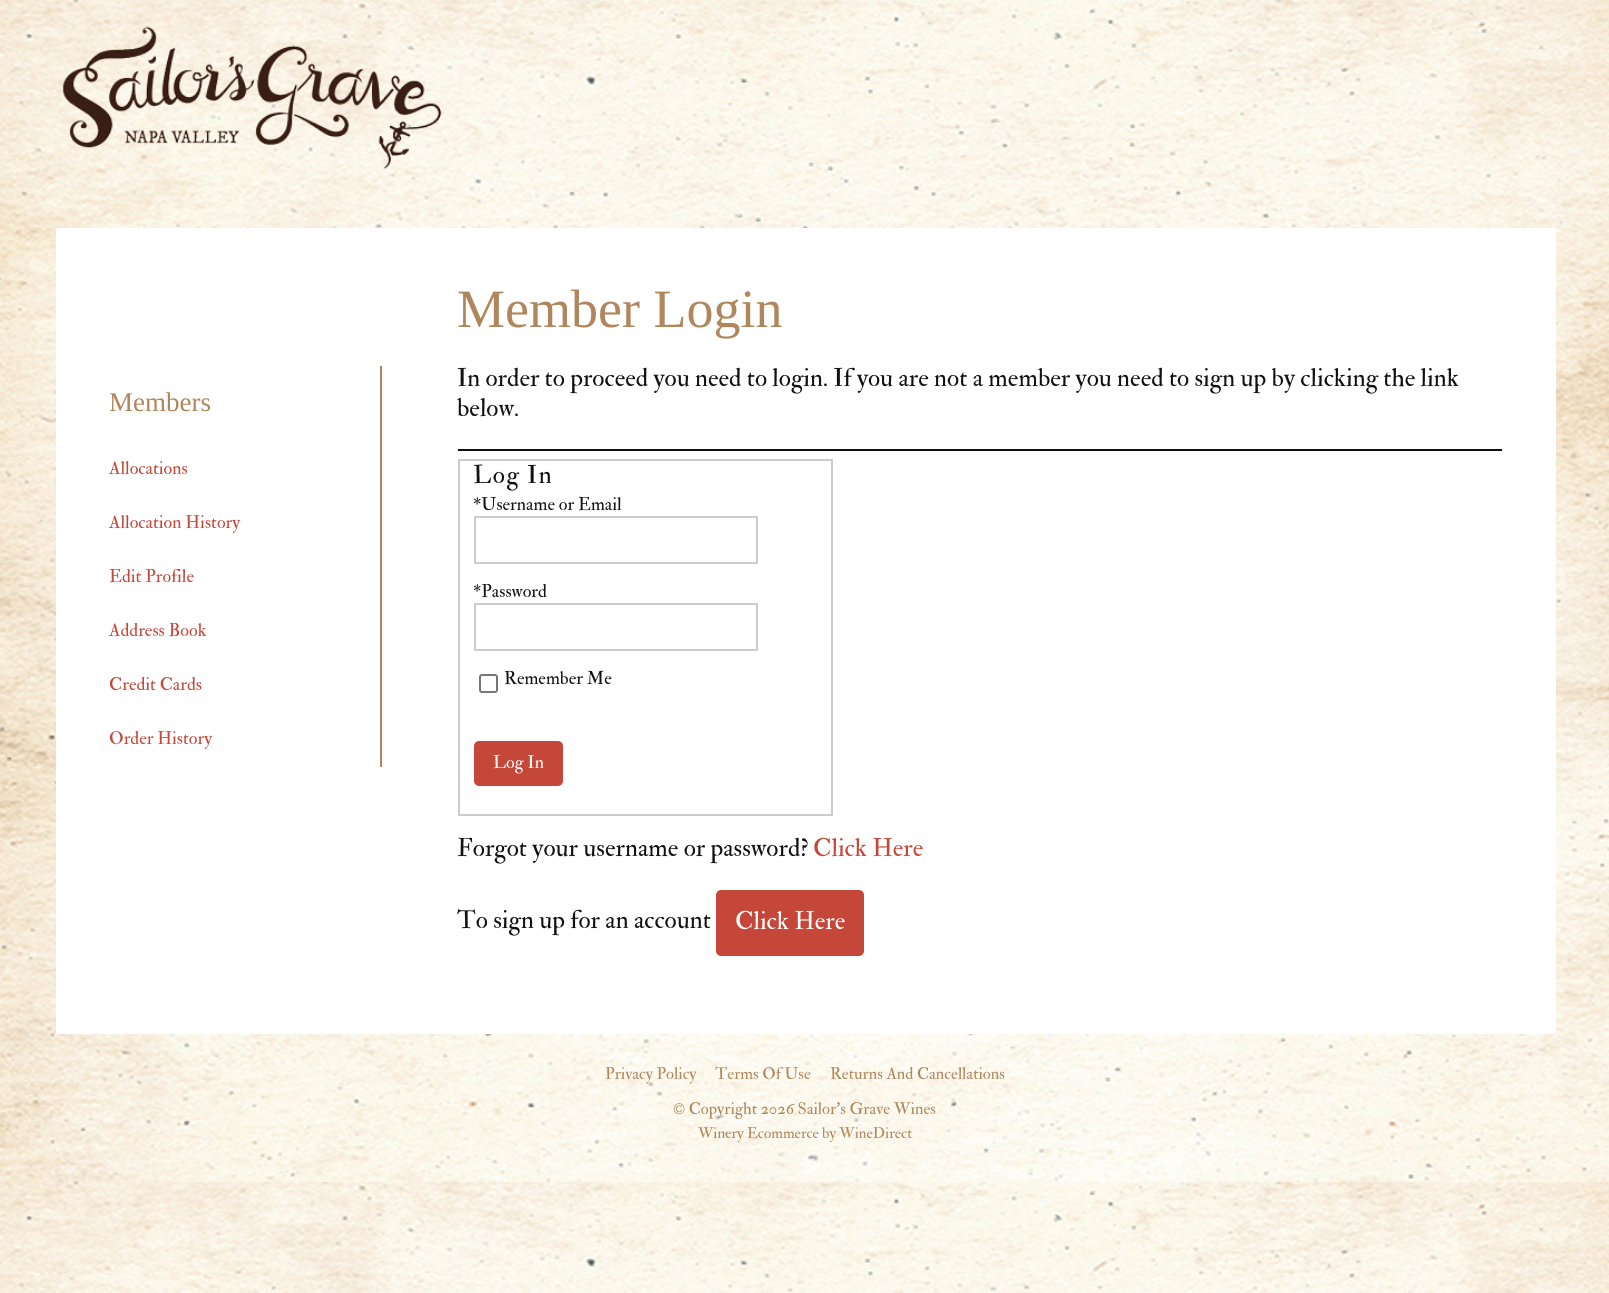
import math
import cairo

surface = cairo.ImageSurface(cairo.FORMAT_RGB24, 1609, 1293)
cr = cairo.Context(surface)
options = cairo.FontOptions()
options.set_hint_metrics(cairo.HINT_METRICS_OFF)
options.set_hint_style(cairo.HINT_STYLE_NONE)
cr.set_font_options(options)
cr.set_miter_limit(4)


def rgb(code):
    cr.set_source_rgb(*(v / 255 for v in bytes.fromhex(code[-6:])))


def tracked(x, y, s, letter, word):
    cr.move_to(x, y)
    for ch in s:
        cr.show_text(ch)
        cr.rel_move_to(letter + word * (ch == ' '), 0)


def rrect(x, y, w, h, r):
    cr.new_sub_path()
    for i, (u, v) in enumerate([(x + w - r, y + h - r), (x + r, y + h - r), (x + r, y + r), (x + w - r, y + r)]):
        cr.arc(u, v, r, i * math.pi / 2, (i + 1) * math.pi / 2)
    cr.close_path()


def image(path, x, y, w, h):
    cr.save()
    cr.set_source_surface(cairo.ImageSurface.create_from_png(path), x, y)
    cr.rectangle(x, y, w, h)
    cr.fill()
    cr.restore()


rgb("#ffffff")
cr.paint()
image("img/1.png", 0, 0, 1609, 1293)
image("img/2.png", 62, 26, 380, 143)
for x, y, w, h, color in [
    (56, 228, 1500, 806, "#ffffff"),
    (380, 366, 2, 401, "#b0865c"),
    (458, 449, 1044, 2, "#111111"),
]:
    rgb(color)
    cr.rectangle(x, y, w, h)
    cr.fill()
cr.rectangle(459, 460, 373, 355)
rgb("#cccccc")
cr.stroke()
cr.rectangle(475, 517, 282, 46)
cr.stroke()
cr.rectangle(475, 604, 282, 46)
cr.stroke()
rrect(480, 675, 17, 17, 2)
rgb("#767676")
cr.stroke()
rgb("#c44739")
rrect(475, 742, 87, 43, 4)
cr.fill_preserve()
cr.stroke()
rrect(717, 891, 146, 64, 4)
cr.fill_preserve()
cr.stroke()
cr.select_font_face("Liberation Serif")
cr.set_font_size(27)
rgb("#b0865c")
cr.move_to(109, 411)
cr.show_text("Members")
cr.select_font_face("IM FELL Double Pica")
cr.set_font_size(18)
rgb("#c44739")
for x, y, s in [
    (109, 474, "Allocations"),
    (109, 528, "Allocation History"),
    (109, 582, "Edit Profile"),
    (109, 636, "Address Book"),
    (109, 690, "Credit Cards"),
    (109, 744, "Order History"),
]:
    cr.move_to(x, y)
    cr.show_text(s)
cr.select_font_face("Liberation Serif")
cr.set_font_size(54)
rgb("#b0865c")
cr.move_to(457, 327)
cr.show_text("Member Login")
cr.select_font_face("IM FELL Double Pica")
cr.set_font_size(25.2)
rgb("#111111")
cr.move_to(457, 386)
cr.show_text("In order to proceed you need to login. If you are not a member you need to sign up by clicking the link")
cr.move_to(457, 416)
cr.show_text("below.")
tracked(473, 483, "Log In", 1.5, 0)
cr.set_font_size(18)
for x, y, s in [
    (473, 510, "*Username or Email"),
    (473, 597, "*Password"),
    (504, 684, "Remember Me"),
]:
    cr.move_to(x, y)
    cr.show_text(s)
rgb("#ffffff")
cr.move_to(493, 768)
cr.show_text("Log In")
cr.set_font_size(25.2)
rgb("#111111")
cr.move_to(457, 856)
cr.show_text("Forgot your username or password?")
rgb("#c44739")
cr.move_to(813, 856)
cr.show_text("Click Here")
rgb("#111111")
cr.move_to(457, 928)
cr.show_text("To sign up for an account")
rgb("#ffffff")
cr.move_to(735, 929)
cr.show_text("Click Here")
cr.set_font_size(16.5)
rgb("#b0865c")
for x, y, s in [
    (605, 1079, "Privacy Policy"),
    (715, 1079, "Terms Of Use"),
    (830, 1079, "Returns And Cancellations"),
    (673, 1114, "© Copyright 2026 Sailor's Grave Wines"),
]:
    cr.move_to(x, y)
    cr.show_text(s)
cr.set_font_size(15.1)
cr.move_to(698, 1138)
cr.show_text("Winery Ecommerce by WineDirect")
surface.write_to_png("page.png")
